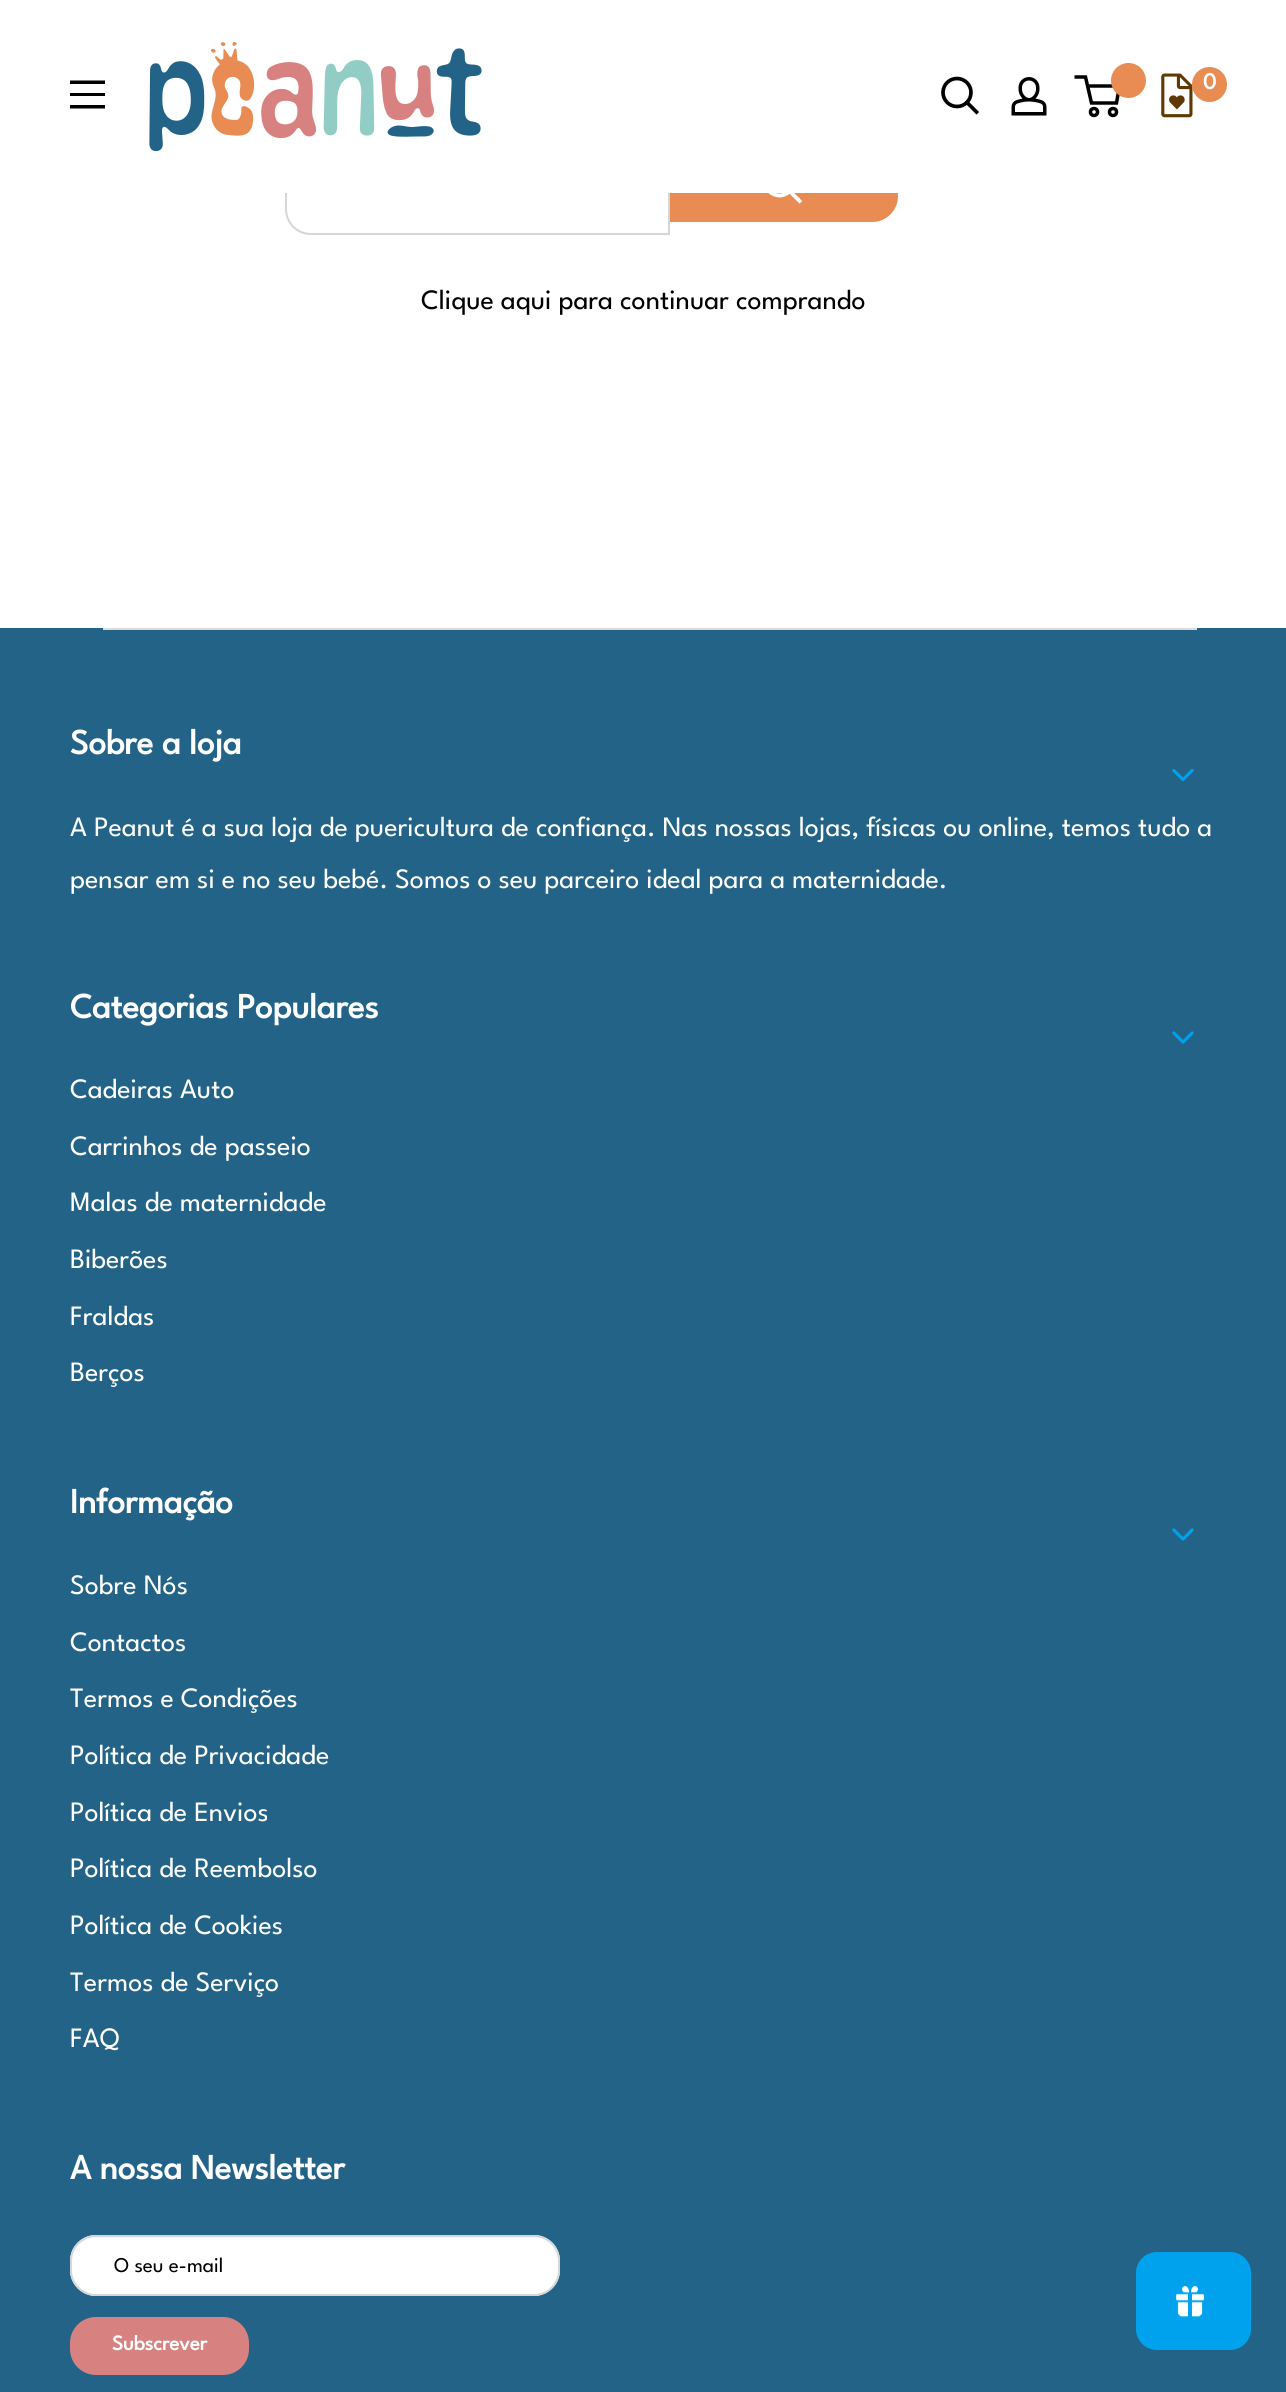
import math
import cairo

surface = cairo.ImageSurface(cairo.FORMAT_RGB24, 1286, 2392)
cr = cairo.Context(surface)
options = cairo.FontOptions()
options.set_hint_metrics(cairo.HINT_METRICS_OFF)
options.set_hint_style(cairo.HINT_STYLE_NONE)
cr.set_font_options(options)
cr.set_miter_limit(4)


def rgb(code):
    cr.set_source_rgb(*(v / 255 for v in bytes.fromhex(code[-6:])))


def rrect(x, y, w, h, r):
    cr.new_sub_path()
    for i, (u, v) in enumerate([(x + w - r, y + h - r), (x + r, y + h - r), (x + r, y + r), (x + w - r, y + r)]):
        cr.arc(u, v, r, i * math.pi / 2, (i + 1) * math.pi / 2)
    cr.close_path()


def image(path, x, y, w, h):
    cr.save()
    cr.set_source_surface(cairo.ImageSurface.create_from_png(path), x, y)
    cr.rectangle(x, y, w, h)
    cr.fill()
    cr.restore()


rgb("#ffffff")
cr.paint()
cr.new_path()
cr.move_to(311, 132)
cr.line_to(669, 132)
cr.line_to(669, 234)
cr.line_to(311, 234)
cr.curve_to(297, 234, 286, 223, 286, 209)
cr.line_to(286, 157)
cr.curve_to(286, 143, 297, 132, 311, 132)
cr.close_path()
rgb("#d4d6d8")
cr.stroke()
rgb("#e98c53")
cr.new_path()
cr.move_to(670, 144)
cr.line_to(872, 144)
cr.curve_to(886.5, 144, 898, 155.5, 898, 170)
cr.line_to(898, 196)
cr.curve_to(898, 210.5, 886.5, 222, 872, 222)
cr.line_to(670, 222)
cr.close_path()
cr.fill()
cr.new_path()
cr.move_to(799.5, 201)
cr.line_to(790, 191.5)
rgb("#ffffff")
cr.set_line_width(3.8)
cr.set_line_cap(cairo.LINE_CAP_SQUARE)
cr.stroke()
cr.arc(779.5, 181, 14.5, 0, 2 * math.pi)
cr.set_line_cap(cairo.LINE_CAP_BUTT)
cr.stroke()
cr.rectangle(285, 131, 613, 62)
cr.fill()
rgb("#000000")
cr.set_fill_rule(cairo.FILL_RULE_EVEN_ODD)
cr.new_path()
cr.move_to(70, 105)
cr.line_to(105, 105)
cr.line_to(105, 108.5)
cr.line_to(70, 108.5)
cr.close_path()
cr.move_to(70, 80.5)
cr.line_to(105, 80.5)
cr.line_to(105, 84)
cr.line_to(70, 84)
cr.close_path()
cr.move_to(70, 93)
cr.line_to(105, 93)
cr.line_to(105, 96)
cr.line_to(70, 96)
cr.close_path()
cr.fill()
image("img/1.png", 149, 41, 333, 111)
cr.new_path()
cr.move_to(976.5, 112)
cr.line_to(967, 102.5)
cr.set_line_width(3.7)
cr.set_line_cap(cairo.LINE_CAP_SQUARE)
cr.stroke()
cr.arc(957, 92.5, 14, 0, 2 * math.pi)
cr.set_line_cap(cairo.LINE_CAP_BUTT)
cr.stroke()
image("img/2.png", 1011, 77, 36, 39)
cr.arc(1094, 112, 3.5, 0, 2 * math.pi)
cr.set_line_width(3.5)
cr.stroke()
cr.arc(1113, 112, 3.5, 0, 2 * math.pi)
cr.stroke()
cr.new_path()
cr.move_to(1087.5, 86)
cr.line_to(1119.5, 86)
cr.line_to(1116.5, 103)
cr.line_to(1091.5, 103)
cr.line_to(1085.5, 77)
cr.line_to(1074.5, 77)
cr.stroke()
rgb("#e98c53")
cr.arc(1128.5, 80.5, 17.5, 0, 2 * math.pi)
cr.fill()
image("img/3.png", 1161, 73, 32, 45)
cr.arc(1209.5, 84.5, 17.5, 0, 2 * math.pi)
cr.fill()
rgb("#246388")
cr.rectangle(0, 628, 1286, 1764)
cr.fill()
rgb("#dbdbdb")
cr.rectangle(103, 628, 1094, 2)
cr.fill()
image("img/4.png", 1172, 769, 22, 13)
image("img/5.png", 1172, 1031, 22, 13)
image("img/5.png", 1172, 1528, 22, 13)
rgb("#ffffff")
rrect(70, 2235, 490, 61, 26)
cr.fill()
rgb("#f8f8f8")
cr.set_fill_rule(cairo.FILL_RULE_WINDING)
cr.new_path()
cr.move_to(96, 2238)
cr.line_to(534, 2238)
cr.curve_to(547, 2238, 558, 2249, 558, 2263)
cr.line_to(558, 2262)
cr.curve_to(558, 2248, 547, 2237, 533, 2237)
cr.line_to(97, 2237)
cr.curve_to(83, 2237, 72, 2248, 72, 2262)
cr.line_to(72, 2263)
cr.curve_to(72, 2249, 83, 2238, 96, 2238)
cr.close_path()
cr.fill()
rrect(71, 2236, 488, 59, 25)
rgb("#d4d6d8")
cr.set_line_width(2)
cr.stroke()
rgb("#d78280")
rrect(70, 2317, 179, 58, 26)
cr.fill()
rgb("#00a2ee")
rrect(1136, 2252, 115, 98, 21)
cr.fill()
image("img/6.png", 1176, 2285, 29, 33)
cr.select_font_face("League Spartan", cairo.FONT_SLANT_NORMAL, cairo.FONT_WEIGHT_BOLD)
cr.set_font_size(23)
rgb("#ffffff")
cr.move_to(1203, 89)
cr.show_text("0")
cr.select_font_face("League Spartan")
cr.set_font_size(28)
rgb("#000000")
cr.move_to(421, 309)
cr.show_text("Clique aqui para continuar comprando")
cr.select_font_face("League Spartan", cairo.FONT_SLANT_NORMAL, cairo.FONT_WEIGHT_BOLD)
cr.set_font_size(35)
rgb("#ffffff")
cr.move_to(70, 754)
cr.show_text("Sobre a loja")
cr.select_font_face("League Spartan")
cr.set_font_size(28)
cr.move_to(70, 836)
cr.show_text("A Peanut é a sua loja de puericultura de confiança. Nas nossas lojas, físicas ou online, temos tudo a")
cr.move_to(70, 888)
cr.show_text("pensar em si e no seu bebé. Somos o seu parceiro ideal para a maternidade.")
cr.select_font_face("League Spartan", cairo.FONT_SLANT_NORMAL, cairo.FONT_WEIGHT_BOLD)
cr.set_font_size(35)
cr.move_to(70, 1018)
cr.show_text("Categorias Populares")
cr.select_font_face("League Spartan")
cr.set_font_size(28)
for x, y, s in [
    (70, 1098, "Cadeiras Auto"),
    (70, 1155, "Carrinhos de passeio"),
    (70, 1211, "Malas de maternidade"),
    (70, 1268, "Biberões"),
    (70, 1325, "Fraldas"),
    (70, 1381, "Berços"),
]:
    cr.move_to(x, y)
    cr.show_text(s)
cr.select_font_face("League Spartan", cairo.FONT_SLANT_NORMAL, cairo.FONT_WEIGHT_BOLD)
cr.set_font_size(35)
cr.move_to(70, 1513)
cr.show_text("Informação")
cr.select_font_face("League Spartan")
cr.set_font_size(28)
for x, y, s in [
    (70, 1594, "Sobre Nós"),
    (70, 1651, "Contactos"),
    (70, 1707, "Termos e Condições"),
    (70, 1764, "Política de Privacidade"),
    (70, 1821, "Política de Envios"),
    (70, 1877, "Política de Reembolso"),
    (70, 1934, "Política de Cookies"),
    (70, 1991, "Termos de Serviço"),
    (70, 2047, "FAQ"),
]:
    cr.move_to(x, y)
    cr.show_text(s)
cr.select_font_face("League Spartan", cairo.FONT_SLANT_NORMAL, cairo.FONT_WEIGHT_BOLD)
cr.set_font_size(35)
cr.move_to(70, 2179)
cr.show_text("A nossa Newsletter")
cr.select_font_face("League Spartan")
cr.set_font_size(21)
rgb("#000000")
cr.move_to(114, 2272)
cr.show_text("O seu e-mail")
cr.select_font_face("League Spartan", cairo.FONT_SLANT_NORMAL, cairo.FONT_WEIGHT_BOLD)
rgb("#ffffff")
cr.move_to(112, 2350)
cr.show_text("Subscrever")
surface.write_to_png("page.png")
